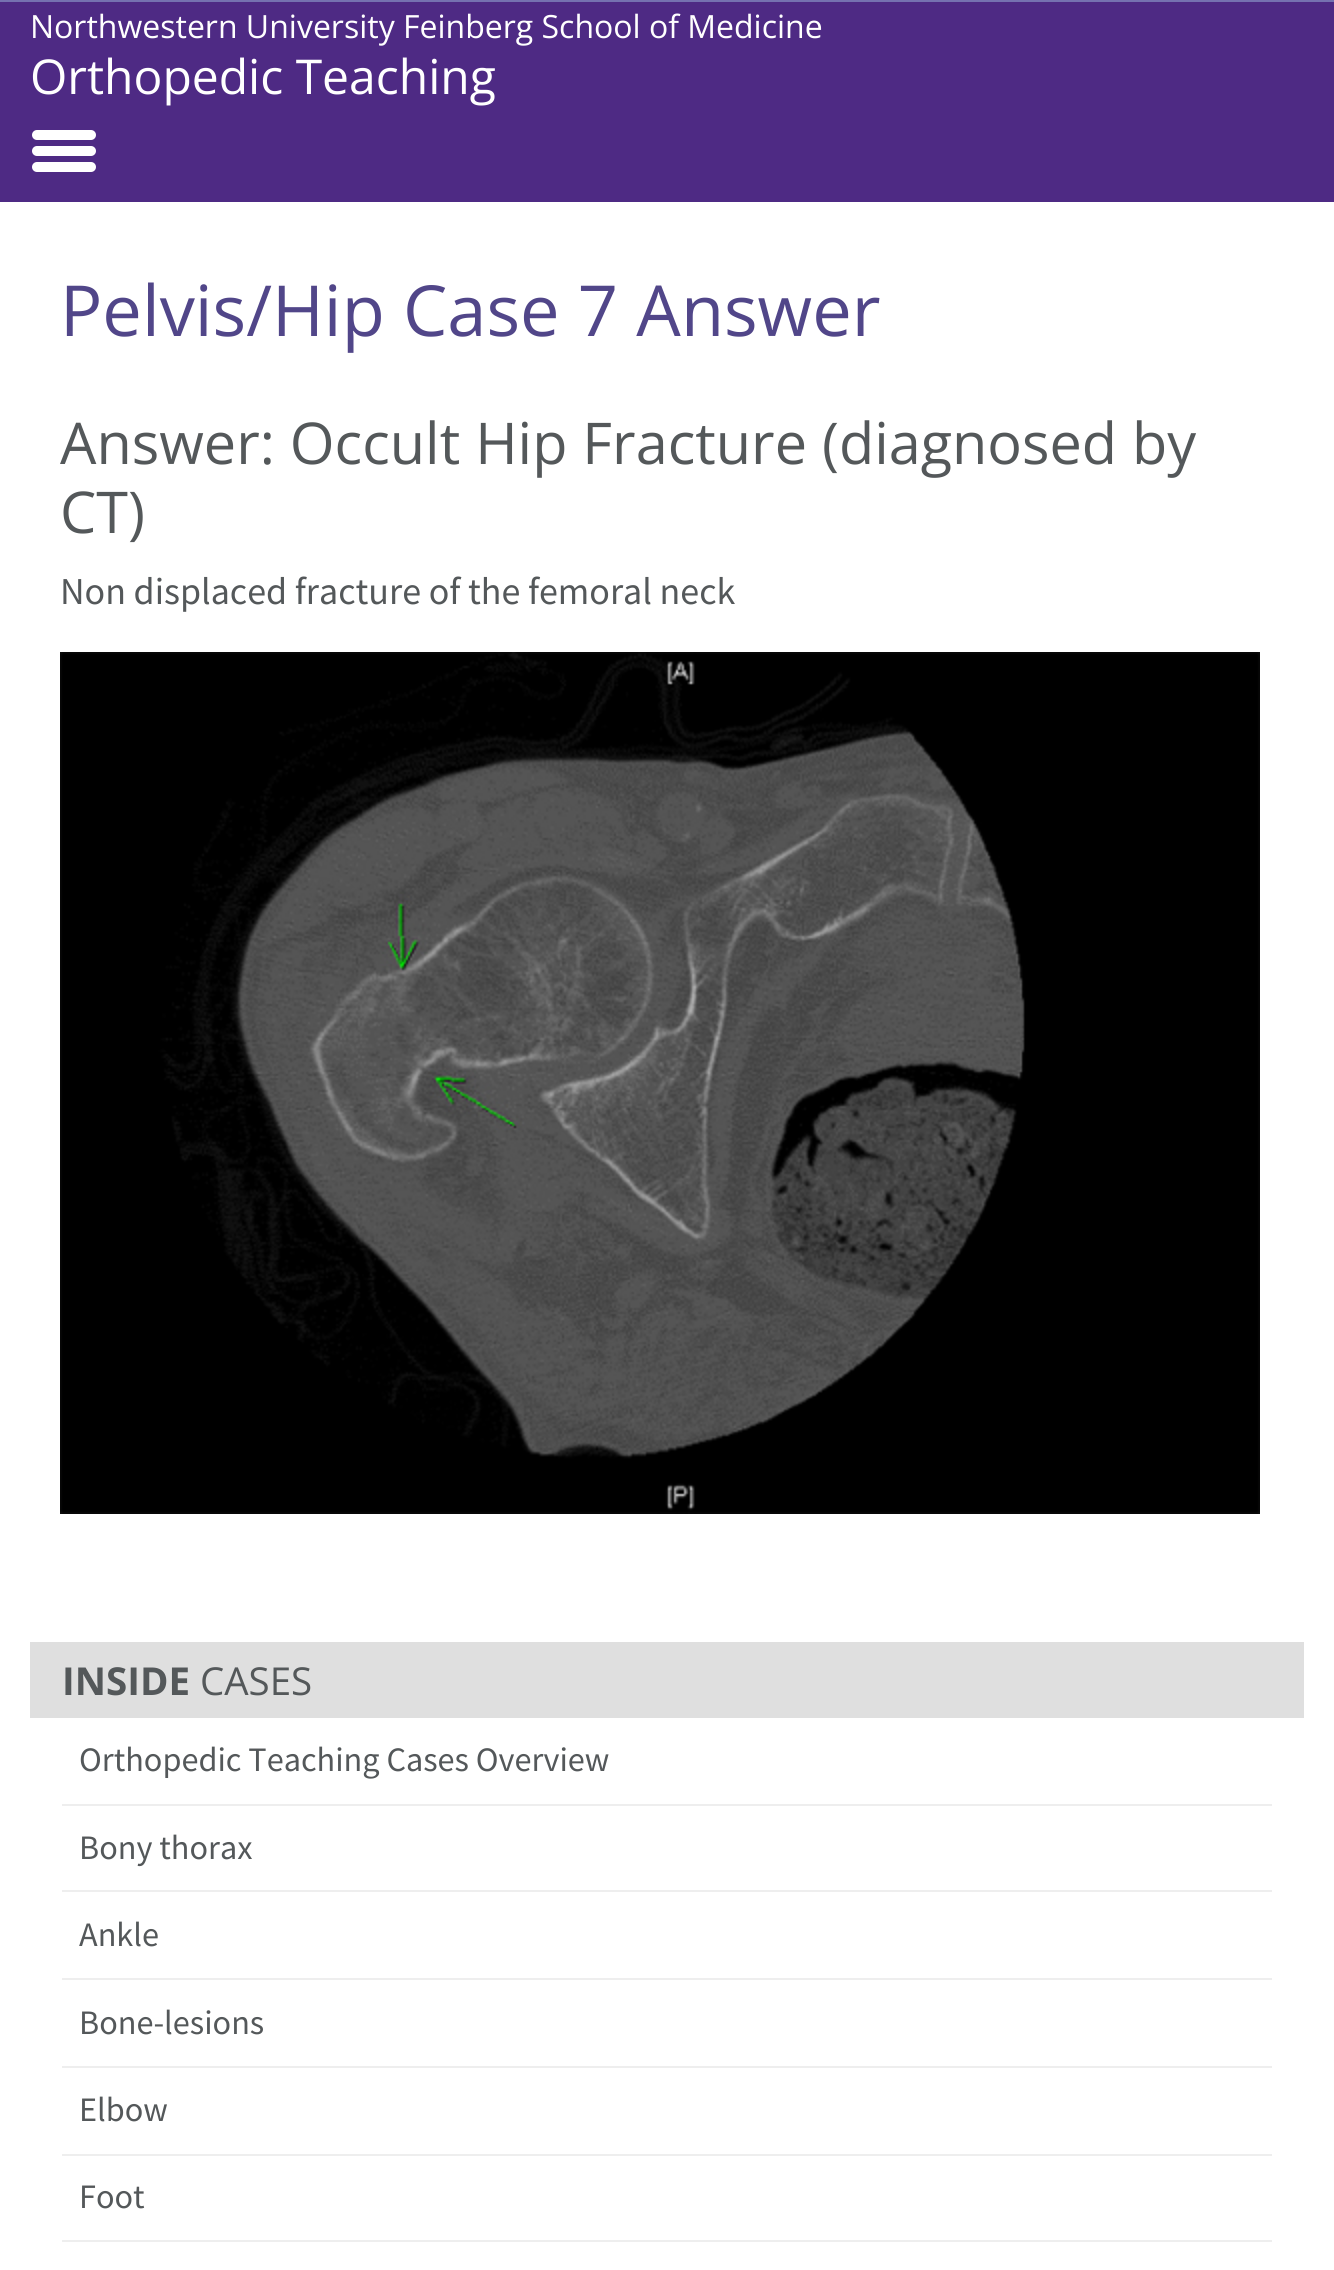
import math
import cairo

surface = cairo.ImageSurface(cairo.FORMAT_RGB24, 1334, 2270)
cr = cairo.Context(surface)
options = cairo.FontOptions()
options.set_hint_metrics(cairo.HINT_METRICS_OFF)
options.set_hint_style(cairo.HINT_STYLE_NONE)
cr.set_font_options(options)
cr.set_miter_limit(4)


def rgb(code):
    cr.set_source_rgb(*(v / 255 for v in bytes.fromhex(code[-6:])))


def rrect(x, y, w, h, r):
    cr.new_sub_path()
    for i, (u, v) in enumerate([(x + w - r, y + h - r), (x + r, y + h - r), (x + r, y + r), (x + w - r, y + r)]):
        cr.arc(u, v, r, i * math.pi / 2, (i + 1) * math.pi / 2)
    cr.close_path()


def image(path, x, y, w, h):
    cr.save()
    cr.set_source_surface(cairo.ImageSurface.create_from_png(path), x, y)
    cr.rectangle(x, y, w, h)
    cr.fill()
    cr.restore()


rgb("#ffffff")
cr.paint()
rgb("#4e2a84")
cr.rectangle(0, 2, 1334, 200)
cr.fill()
rgb("#7571b0")
cr.rectangle(0, 0, 1334, 2)
cr.fill()
rgb("#ffffff")
rrect(32, 146, 64, 10, 5)
cr.fill()
rrect(32, 130, 64, 10, 5)
cr.fill()
rrect(32, 162, 64, 10, 5)
cr.fill()
image("img/1.png", 60, 652, 1200, 862)
for x, y, w, h, color in [
    (30, 1642, 1274, 76, "#dfdfdf"),
    (62, 1804, 1210, 2, "#eeeeee"),
    (62, 1890, 1210, 2, "#eeeeee"),
    (62, 1978, 1210, 2, "#eeeeee"),
    (62, 2066, 1210, 2, "#eeeeee"),
    (62, 2154, 1210, 2, "#eeeeee"),
    (62, 2240, 1210, 2, "#eeeeee"),
]:
    rgb(color)
    cr.rectangle(x, y, w, h)
    cr.fill()
cr.select_font_face("Open Sans")
cr.set_font_size(32)
rgb("#ffffff")
cr.move_to(30, 38)
cr.show_text("Northwestern University Feinberg School of Medicine")
cr.set_font_size(48)
cr.move_to(30, 94)
cr.show_text("Orthopedic Teaching")
cr.set_font_size(70.4)
rgb("#514689")
cr.move_to(60, 336)
cr.show_text("Pelvis/Hip Case 7 Answer")
cr.set_font_size(57.6)
rgb("#54585a")
cr.move_to(60, 464)
cr.show_text("Answer: Occult Hip Fracture (diagnosed by")
cr.move_to(60, 533)
cr.show_text("CT)")
cr.select_font_face("Source Sans Pro")
cr.set_font_size(38)
cr.move_to(60, 604)
cr.show_text("Non displaced fracture of the femoral neck")
cr.select_font_face("Open Sans", cairo.FONT_SLANT_NORMAL, cairo.FONT_WEIGHT_BOLD)
cr.set_font_size(38.5)
cr.move_to(62, 1695)
cr.show_text("INSIDE")
cr.select_font_face("Open Sans")
cr.move_to(200, 1695)
cr.show_text("CASES")
cr.select_font_face("Source Sans Pro")
cr.set_font_size(34.25)
for x, y, s in [
    (79, 1771, "Orthopedic Teaching Cases Overview"),
    (79, 1859, "Bony thorax"),
    (79, 1946, "Ankle"),
    (79, 2034, "Bone-lesions"),
    (79, 2121, "Elbow"),
    (79, 2208, "Foot"),
]:
    cr.move_to(x, y)
    cr.show_text(s)
surface.write_to_png("page.png")
